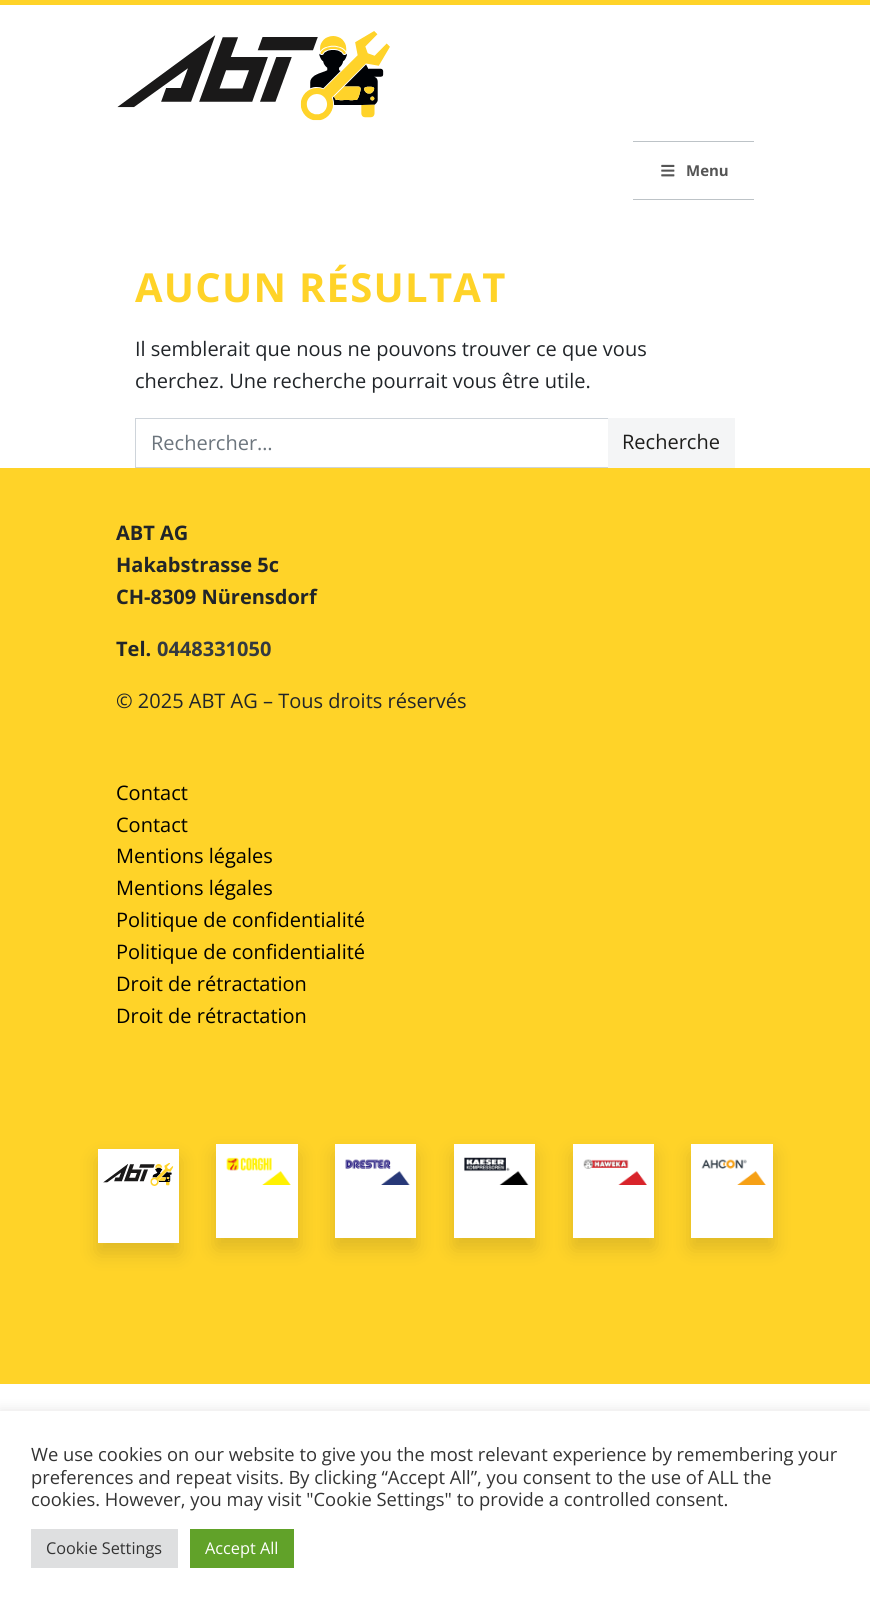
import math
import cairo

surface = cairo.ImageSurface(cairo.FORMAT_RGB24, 870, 1604)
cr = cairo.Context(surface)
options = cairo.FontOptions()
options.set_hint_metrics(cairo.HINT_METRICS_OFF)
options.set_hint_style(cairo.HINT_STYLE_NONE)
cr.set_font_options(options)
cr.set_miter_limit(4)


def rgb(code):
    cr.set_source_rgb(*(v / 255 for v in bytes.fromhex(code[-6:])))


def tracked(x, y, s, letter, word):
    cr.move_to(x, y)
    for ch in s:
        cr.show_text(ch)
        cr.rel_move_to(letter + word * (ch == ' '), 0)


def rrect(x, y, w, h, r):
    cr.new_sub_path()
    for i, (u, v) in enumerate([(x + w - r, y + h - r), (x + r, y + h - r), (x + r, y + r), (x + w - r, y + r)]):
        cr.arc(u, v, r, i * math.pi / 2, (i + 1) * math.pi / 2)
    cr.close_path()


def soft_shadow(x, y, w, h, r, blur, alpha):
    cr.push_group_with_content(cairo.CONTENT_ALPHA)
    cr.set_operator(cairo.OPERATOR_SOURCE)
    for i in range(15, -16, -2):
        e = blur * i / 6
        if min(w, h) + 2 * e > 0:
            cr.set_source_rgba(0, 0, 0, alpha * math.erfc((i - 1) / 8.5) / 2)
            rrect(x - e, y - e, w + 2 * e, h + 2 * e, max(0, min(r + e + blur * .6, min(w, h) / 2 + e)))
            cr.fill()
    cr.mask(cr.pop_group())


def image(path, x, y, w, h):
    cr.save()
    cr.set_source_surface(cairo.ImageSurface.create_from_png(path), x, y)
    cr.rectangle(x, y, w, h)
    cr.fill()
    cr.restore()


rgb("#ffffff")
cr.paint()
rgb("#ffd328")
cr.rectangle(0, 0, 870, 5)
cr.fill()
image("img/1.png", 117, 31, 273, 90)
rgb("#bdc3c7")
cr.rectangle(633, 141, 121, 1)
cr.fill()
cr.rectangle(633, 199, 121, 1)
cr.fill()
image("img/2.png", 661, 164, 14, 13)
cr.rectangle(135.5, 418.5, 473, 49)
rgb("#ced4da")
cr.set_line_width(1)
cr.stroke()
rgb("#f4f5f6")
cr.rectangle(608, 418, 127, 50)
cr.fill()
rgb("#ffd328")
cr.rectangle(0, 468, 870, 916)
cr.fill()
rgb("#1d1d1b")
soft_shadow(98, 1159, 81, 94, 0, 10, 0.15)
rgb("#ffffff")
cr.rectangle(98, 1149, 81, 94)
cr.fill()
image("img/3.png", 103, 1163, 71, 23)
rgb("#1d1d1b")
soft_shadow(216, 1154, 82, 94, 0, 10, 0.15)
rgb("#ffffff")
cr.rectangle(216, 1144, 82, 94)
cr.fill()
image("img/4.png", 226, 1157, 65, 28)
rgb("#1d1d1b")
soft_shadow(335, 1154, 81, 94, 0, 10, 0.15)
rgb("#ffffff")
cr.rectangle(335, 1144, 81, 94)
cr.fill()
image("img/5.png", 345, 1159, 65, 26)
rgb("#1d1d1b")
soft_shadow(454, 1154, 81, 94, 0, 10, 0.15)
rgb("#ffffff")
cr.rectangle(454, 1144, 81, 94)
cr.fill()
image("img/6.png", 464, 1157, 65, 28)
rgb("#1d1d1b")
soft_shadow(573, 1154, 81, 94, 0, 10, 0.15)
rgb("#ffffff")
cr.rectangle(573, 1144, 81, 94)
cr.fill()
image("img/7.png", 583, 1159, 64, 26)
rgb("#1d1d1b")
soft_shadow(691, 1154, 82, 94, 0, 10, 0.15)
rgb("#ffffff")
cr.rectangle(691, 1144, 82, 94)
cr.fill()
image("img/8.png", 701, 1159, 65, 26)
rgb("#acabab")
soft_shadow(0, 1410, 870, 194, 0, 6, 0.3)
for x, y, w, h, color in [
    (0, 1411, 870, 193, "#ffffff"),
    (31, 1529, 147, 39, "#dedfe0"),
    (190, 1529, 104, 39, "#61a229"),
]:
    rgb(color)
    cr.rectangle(x, y, w, h)
    cr.fill()
cr.select_font_face("Open Sans", cairo.FONT_SLANT_NORMAL, cairo.FONT_WEIGHT_BOLD)
cr.set_font_size(15)
rgb("#555555")
cr.move_to(686, 176)
cr.show_text("Menu")
cr.set_font_size(40)
rgb("#ffd328")
tracked(135, 302, "AUCUN RÉSULTAT", 1.25, 0)
cr.select_font_face("Open Sans")
cr.set_font_size(20)
rgb("#212529")
cr.move_to(135, 356)
cr.show_text("Il semblerait que nous ne pouvons trouver ce que vous")
cr.move_to(135, 388)
cr.show_text("cherchez. Une recherche pourrait vous être utile.")
rgb("#6c757d")
cr.move_to(151, 450)
cr.show_text("Rechercher…")
rgb("#1d1d1b")
cr.move_to(622, 449)
cr.show_text("Recherche")
cr.select_font_face("Open Sans", cairo.FONT_SLANT_NORMAL, cairo.FONT_WEIGHT_BOLD)
rgb("#212529")
for x, y, s in [
    (116, 540, "ABT AG"),
    (116, 572, "Hakabstrasse 5c"),
    (116, 604, "CH-8309 Nürensdorf"),
    (116, 656, "Tel."),
]:
    cr.move_to(x, y)
    cr.show_text(s)
rgb("#343a40")
cr.move_to(157, 656)
cr.show_text("0448331050")
cr.select_font_face("Open Sans")
rgb("#212529")
cr.move_to(116, 708)
cr.show_text("© 2025 ABT AG – Tous droits réservés")
rgb("#000000")
for x, y, s in [
    (116, 800, "Contact"),
    (116, 832, "Contact"),
    (116, 863, "Mentions légales"),
    (116, 895, "Mentions légales"),
    (116, 927, "Politique de confidentialité"),
    (116, 959, "Politique de confidentialité"),
    (116, 991, "Droit de rétractation"),
    (116, 1023, "Droit de rétractation"),
]:
    cr.move_to(x, y)
    cr.show_text(s)
cr.set_font_size(18.35)
rgb("#333333")
for x, y, s in [
    (31, 1461, "We use cookies on our website to give you the most relevant experience by remembering your"),
    (31, 1484, "preferences and repeat visits. By clicking “Accept All”, you consent to the use of ALL the"),
    (31, 1506, "cookies. However, you may visit \"Cookie Settings\" to provide a controlled consent."),
]:
    cr.move_to(x, y)
    cr.show_text(s)
cr.set_font_size(16.25)
cr.move_to(46, 1554)
cr.show_text("Cookie Settings")
rgb("#ffffff")
cr.move_to(205, 1554)
cr.show_text("Accept All")
surface.write_to_png("page.png")
